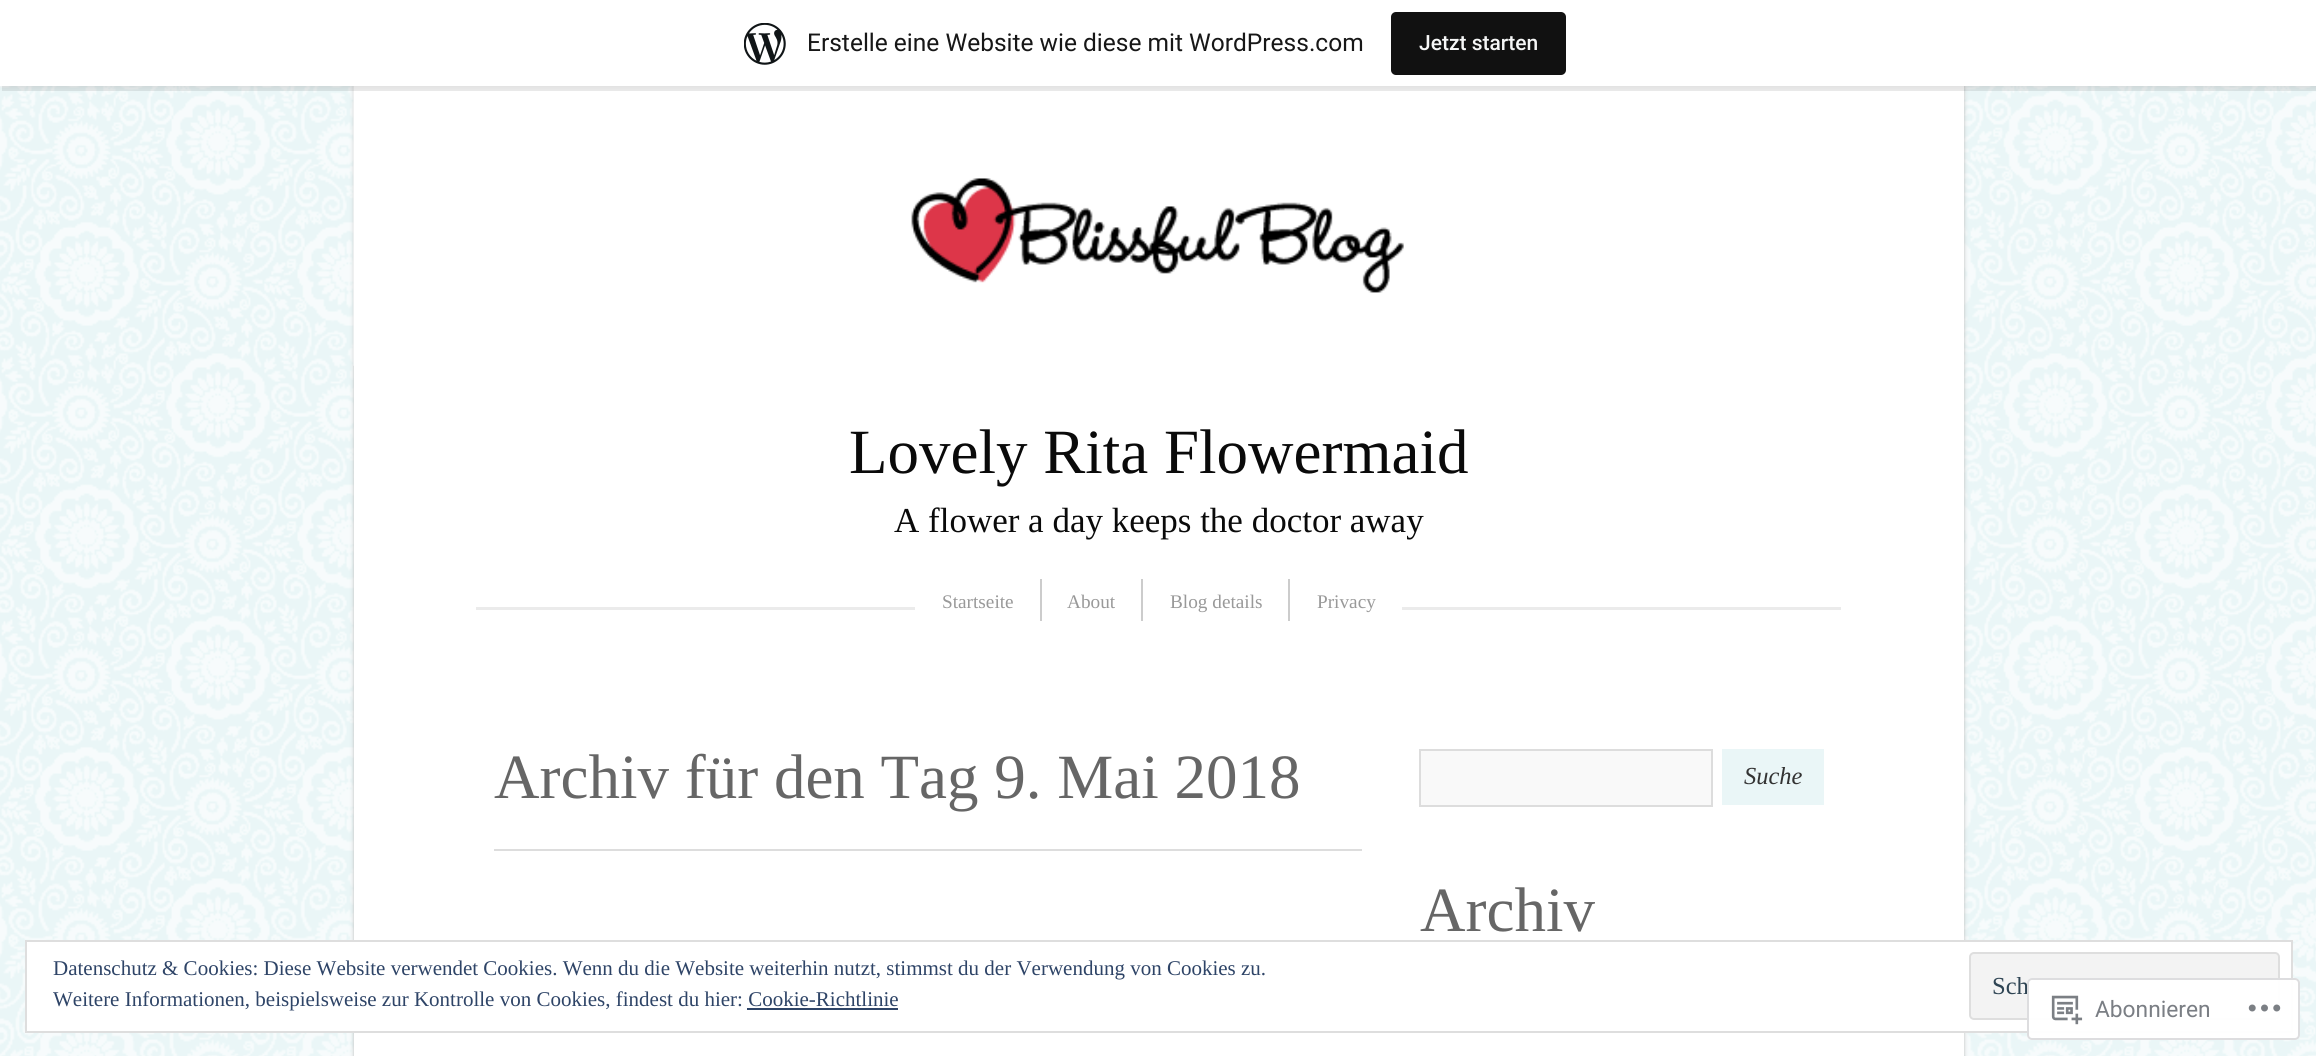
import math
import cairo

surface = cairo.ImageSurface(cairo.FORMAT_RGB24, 2316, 1056)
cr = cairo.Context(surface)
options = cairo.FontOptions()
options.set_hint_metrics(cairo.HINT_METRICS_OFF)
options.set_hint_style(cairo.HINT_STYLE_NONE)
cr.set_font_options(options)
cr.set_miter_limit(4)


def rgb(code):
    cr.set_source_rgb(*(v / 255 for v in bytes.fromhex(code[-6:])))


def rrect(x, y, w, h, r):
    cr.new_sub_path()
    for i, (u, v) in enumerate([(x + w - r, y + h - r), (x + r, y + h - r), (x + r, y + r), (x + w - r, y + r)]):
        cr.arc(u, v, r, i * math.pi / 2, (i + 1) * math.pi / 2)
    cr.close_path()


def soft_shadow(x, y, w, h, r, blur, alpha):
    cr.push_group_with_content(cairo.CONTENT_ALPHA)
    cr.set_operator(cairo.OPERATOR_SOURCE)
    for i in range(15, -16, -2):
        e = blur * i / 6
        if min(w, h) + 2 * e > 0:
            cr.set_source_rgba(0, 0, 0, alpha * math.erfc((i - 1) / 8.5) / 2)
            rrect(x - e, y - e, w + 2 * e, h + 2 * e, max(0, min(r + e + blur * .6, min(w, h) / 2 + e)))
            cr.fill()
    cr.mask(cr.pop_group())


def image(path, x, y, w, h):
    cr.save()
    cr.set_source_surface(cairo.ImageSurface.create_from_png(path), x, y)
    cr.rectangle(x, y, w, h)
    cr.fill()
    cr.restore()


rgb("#eaf6f7")
cr.paint()
image("img/1.png", 0, 86, 2316, 970)
rgb("#bbbbbb")
soft_shadow(354, 86, 1610, 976, 0, 2, 1)
rgb("#ffffff")
cr.rectangle(354, 86, 1610, 970)
cr.fill()
image("img/3.png", 353, 86, 1610, 280)
rgb("#000000")
soft_shadow(0, 2, 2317, 86, 0, 2, 0.05)
cr.set_source_rgba(0, 0, 0, 0.08)
cr.new_path()
cr.move_to(2, 86)
cr.line_to(2, 91)
cr.line_to(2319, 91)
cr.line_to(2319, 5)
cr.line_to(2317, 5)
cr.line_to(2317, 86)
cr.close_path()
cr.fill()
rgb("#ffffff")
cr.rectangle(0, 0, 2316, 86)
cr.fill()
image("img/2.png", 744, 23, 42, 42)
rgb("#111111")
rrect(1391, 12, 175, 63, 5)
cr.fill()
for x, y, w, h, color in [
    (476, 607, 1365, 3, "#ebebeb"),
    (915, 607, 487, 3, "#ffffff"),
    (1040, 579, 2, 42, "#cccccc"),
    (1141, 579, 2, 42, "#cccccc"),
    (1288, 579, 2, 42, "#cccccc"),
    (494, 849, 868, 2, "#dddddd"),
]:
    rgb(color)
    cr.rectangle(x, y, w, h)
    cr.fill()
rgb("#f9f9f9")
cr.rectangle(1420, 750, 292, 56)
cr.fill_preserve()
rgb("#dddddd")
cr.stroke()
rgb("#eaf6f7")
cr.rectangle(1722, 749, 102, 56)
cr.fill()
rgb("#ffffff")
cr.rectangle(26, 941, 2266, 91)
cr.fill_preserve()
rgb("#dedede")
cr.stroke()
rgb("#f3f3f3")
rrect(1970, 953, 309, 66, 4)
cr.fill_preserve()
rgb("#dedede")
cr.stroke()
rgb("#2e4467")
cr.rectangle(747, 1008, 151, 2)
cr.fill()
cr.select_font_face("Roboto")
cr.set_font_size(24.5)
rgb("#171717")
cr.move_to(807, 51)
cr.show_text("Erstelle eine Website wie diese mit WordPress.com")
cr.select_font_face("Roboto Medium")
cr.set_font_size(21)
rgb("#f6f7f7")
cr.move_to(1419, 50)
cr.show_text("Jetzt starten")
cr.select_font_face("Liberation Serif")
cr.set_font_size(63)
rgb("#0a0a0a")
cr.move_to(849, 473)
cr.show_text("Lovely Rita Flowermaid")
cr.set_font_size(35)
cr.move_to(894, 532)
cr.show_text("A flower a day keeps the doctor away")
cr.set_font_size(19.25)
rgb("#999999")
for x, y, s in [
    (942, 608, "Startseite"),
    (1067, 608, "About"),
    (1170, 608, "Blog details"),
    (1317, 608, "Privacy"),
]:
    cr.move_to(x, y)
    cr.show_text(s)
cr.set_font_size(63)
rgb("#666666")
cr.move_to(494, 798)
cr.show_text("Archiv für den Tag 9. Mai 2018")
cr.select_font_face("Liberation Serif", cairo.FONT_SLANT_ITALIC)
cr.set_font_size(24.5)
rgb("#333333")
cr.move_to(1744, 784)
cr.show_text("Suche")
cr.select_font_face("Liberation Serif")
cr.set_font_size(63)
rgb("#666666")
cr.move_to(1420, 931)
cr.show_text("Archiv")
cr.set_font_size(21)
rgb("#2e4467")
cr.move_to(53, 975)
cr.show_text("Datenschutz & Cookies: Diese Website verwendet Cookies. Wenn du die Website weiterhin nutzt, stimmst du der Verwendung von Cookies zu.")
cr.set_font_size(24.5)
rgb("#2e4453")
cr.move_to(1992, 994)
cr.show_text("Sch")
cr.set_font_size(21)
rgb("#2e4467")
cr.move_to(53, 1006)
cr.show_text("Weitere Informationen, beispielsweise zur Kontrolle von Cookies, findest du hier: Cookie-Richtlinie")
cr.set_source_rgba(1, 1, 1, 0.98)
rrect(2027, 978, 273, 62, 5)
cr.fill()
rrect(2028, 979, 271, 60, 4)
cr.set_source_rgba(0.863, 0.863, 0.871, 0.98)
cr.stroke()
image("img/4.png", 2051, 995, 32, 30)
cr.select_font_face("Roboto")
cr.set_font_size(22.75)
rgb("#7a7e84")
cr.move_to(2095, 1017)
cr.show_text("Abonnieren")
image("img/5.png", 2248, 1004, 33, 8)
surface.write_to_png("page.png")
